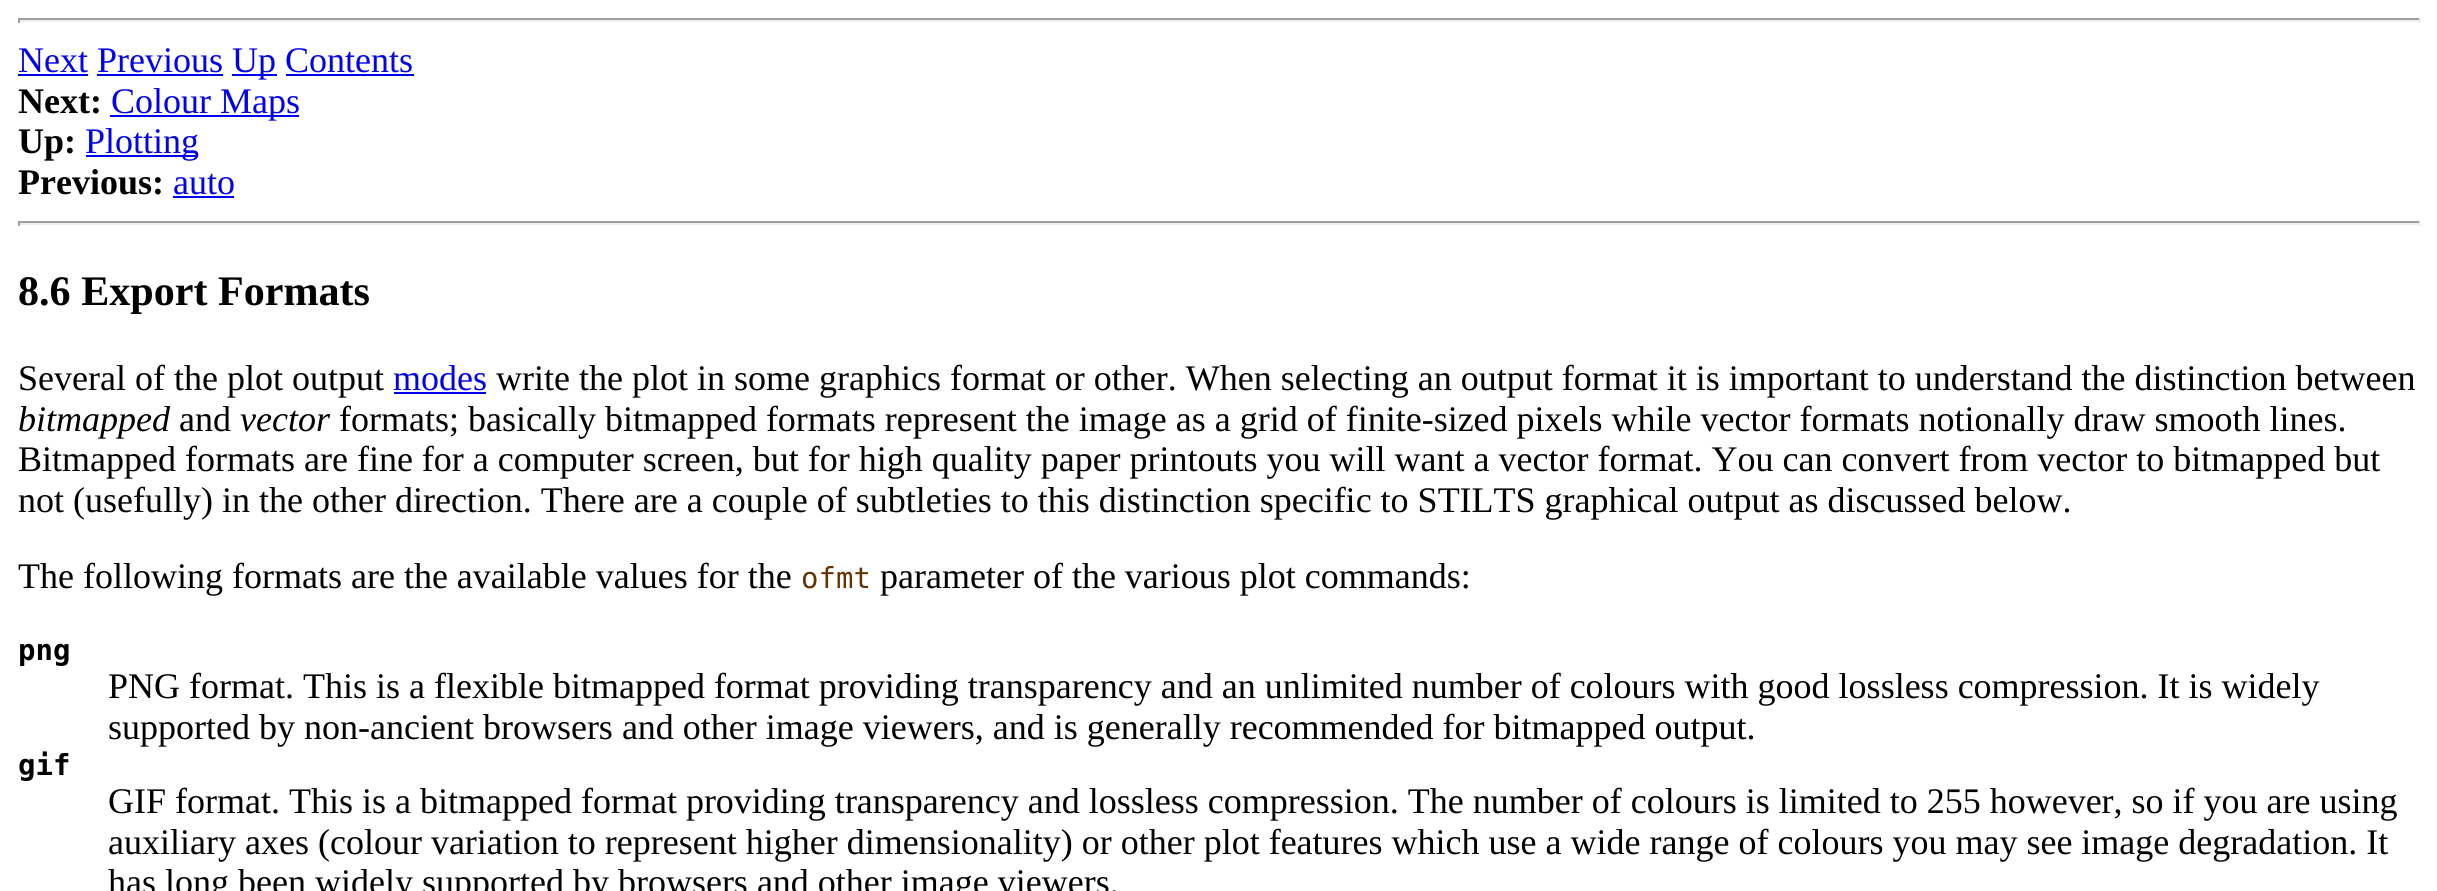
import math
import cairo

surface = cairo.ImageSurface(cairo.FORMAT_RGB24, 2437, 891)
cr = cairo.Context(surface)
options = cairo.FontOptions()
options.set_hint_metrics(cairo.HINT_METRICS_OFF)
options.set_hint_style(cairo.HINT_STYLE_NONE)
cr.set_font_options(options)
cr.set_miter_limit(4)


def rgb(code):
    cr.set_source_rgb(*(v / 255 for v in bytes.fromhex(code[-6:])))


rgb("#ffffff")
cr.paint()
for x, y, w, h, color in [
    (18, 18, 2403, 2, "#9f9f9f"),
    (2419, 18, 2, 5, "#eeeeee"),
    (18, 20, 2403, 2, "#eeeeee"),
    (18, 18, 2, 5, "#9f9f9f"),
    (18, 74, 70, 2, "#0000ee"),
    (232, 74, 45, 2, "#0000ee"),
    (97, 74, 126, 2, "#0000ee"),
    (286, 74, 128, 2, "#0000ee"),
    (110, 115, 189, 2, "#0000ee"),
    (86, 155, 112, 2, "#0000ee"),
    (173, 196, 61, 2, "#0000ee"),
    (18, 221, 2403, 2, "#9f9f9f"),
    (2419, 221, 2, 5, "#eeeeee"),
    (18, 223, 2403, 2, "#eeeeee"),
    (18, 221, 2, 5, "#9f9f9f"),
    (394, 392, 92, 2, "#0000ee"),
]:
    rgb(color)
    cr.rectangle(x, y, w, h)
    cr.fill()
cr.select_font_face("Liberation Serif")
cr.set_font_size(36)
cr.move_to(18, 72)
cr.show_text("Next Previous")
cr.move_to(232, 72)
cr.show_text("Up Contents")
cr.select_font_face("Liberation Serif", cairo.FONT_SLANT_NORMAL, cairo.FONT_WEIGHT_BOLD)
rgb("#000000")
cr.move_to(18, 113)
cr.show_text("Next:")
cr.select_font_face("Liberation Serif")
rgb("#0000ee")
cr.move_to(111, 113)
cr.show_text("Colour Maps")
cr.select_font_face("Liberation Serif", cairo.FONT_SLANT_NORMAL, cairo.FONT_WEIGHT_BOLD)
rgb("#000000")
cr.move_to(18, 153)
cr.show_text("Up:")
cr.select_font_face("Liberation Serif")
rgb("#0000ee")
cr.move_to(85, 153)
cr.show_text("Plotting")
cr.select_font_face("Liberation Serif", cairo.FONT_SLANT_NORMAL, cairo.FONT_WEIGHT_BOLD)
rgb("#000000")
cr.move_to(18, 194)
cr.show_text("Previous:")
cr.select_font_face("Liberation Serif")
rgb("#0000ee")
cr.move_to(173, 194)
cr.show_text("auto")
cr.select_font_face("Liberation Serif", cairo.FONT_SLANT_NORMAL, cairo.FONT_WEIGHT_BOLD)
cr.set_font_size(42.1)
rgb("#000000")
cr.move_to(18, 305)
cr.show_text("8.6 Export Formats")
cr.select_font_face("Liberation Serif")
cr.set_font_size(36)
cr.move_to(18, 390)
cr.show_text("Several of the plot output")
rgb("#0000ee")
cr.move_to(393, 390)
cr.show_text("modes")
rgb("#000000")
cr.move_to(496, 390)
cr.show_text("write the plot in some graphics format or other. When selecting an output format it is important to understand the distinction between")
cr.select_font_face("Liberation Serif", cairo.FONT_SLANT_ITALIC)
cr.move_to(18, 431)
cr.show_text("bitmapped")
cr.select_font_face("Liberation Serif")
cr.move_to(179, 431)
cr.show_text("and")
cr.select_font_face("Liberation Serif", cairo.FONT_SLANT_ITALIC)
cr.move_to(240, 431)
cr.show_text("vector")
cr.select_font_face("Liberation Serif")
for x, y, s in [
    (339, 431, "formats; basically bitmapped formats represent the image as a grid of finite-sized pixels while vector formats notionally draw smooth lines."),
    (18, 471, "Bitmapped formats are fine for a computer screen, but for high quality paper printouts you will want a vector format. You can convert from vector to bitmapped but"),
    (18, 512, "not (usefully) in the other direction. There are a couple of subtleties to this distinction specific to STILTS graphical output as discussed below."),
    (18, 588, "The following formats are the available values for the"),
]:
    cr.move_to(x, y)
    cr.show_text(s)
cr.select_font_face("DejaVu Sans Mono")
cr.set_font_size(29)
rgb("#663300")
cr.move_to(801, 588)
cr.show_text("ofmt")
cr.select_font_face("Liberation Serif")
cr.set_font_size(36)
rgb("#000000")
cr.move_to(880, 588)
cr.show_text("parameter of the various plot commands:")
cr.select_font_face("DejaVu Sans Mono", cairo.FONT_SLANT_NORMAL, cairo.FONT_WEIGHT_BOLD)
cr.set_font_size(29)
cr.move_to(18, 660)
cr.show_text("png")
cr.select_font_face("Liberation Serif")
cr.set_font_size(36)
cr.move_to(108, 698)
cr.show_text("PNG format. This is a flexible bitmapped format providing transparency and an unlimited number of colours with good lossless compression. It is widely")
cr.move_to(108, 739)
cr.show_text("supported by non-ancient browsers and other image viewers, and is generally recommended for bitmapped output.")
cr.select_font_face("DejaVu Sans Mono", cairo.FONT_SLANT_NORMAL, cairo.FONT_WEIGHT_BOLD)
cr.set_font_size(29)
cr.move_to(18, 775)
cr.show_text("gif")
cr.select_font_face("Liberation Serif")
cr.set_font_size(36)
for x, y, s in [
    (108, 813, "GIF format. This is a bitmapped format providing transparency and lossless compression. The number of colours is limited to 255 however, so if you are using"),
    (108, 854, "auxiliary axes (colour variation to represent higher dimensionality) or other plot features which use a wide range of colours you may see image degradation. It"),
    (108, 894, "has long been widely supported by browsers and other image viewers."),
]:
    cr.move_to(x, y)
    cr.show_text(s)
surface.write_to_png("page.png")
